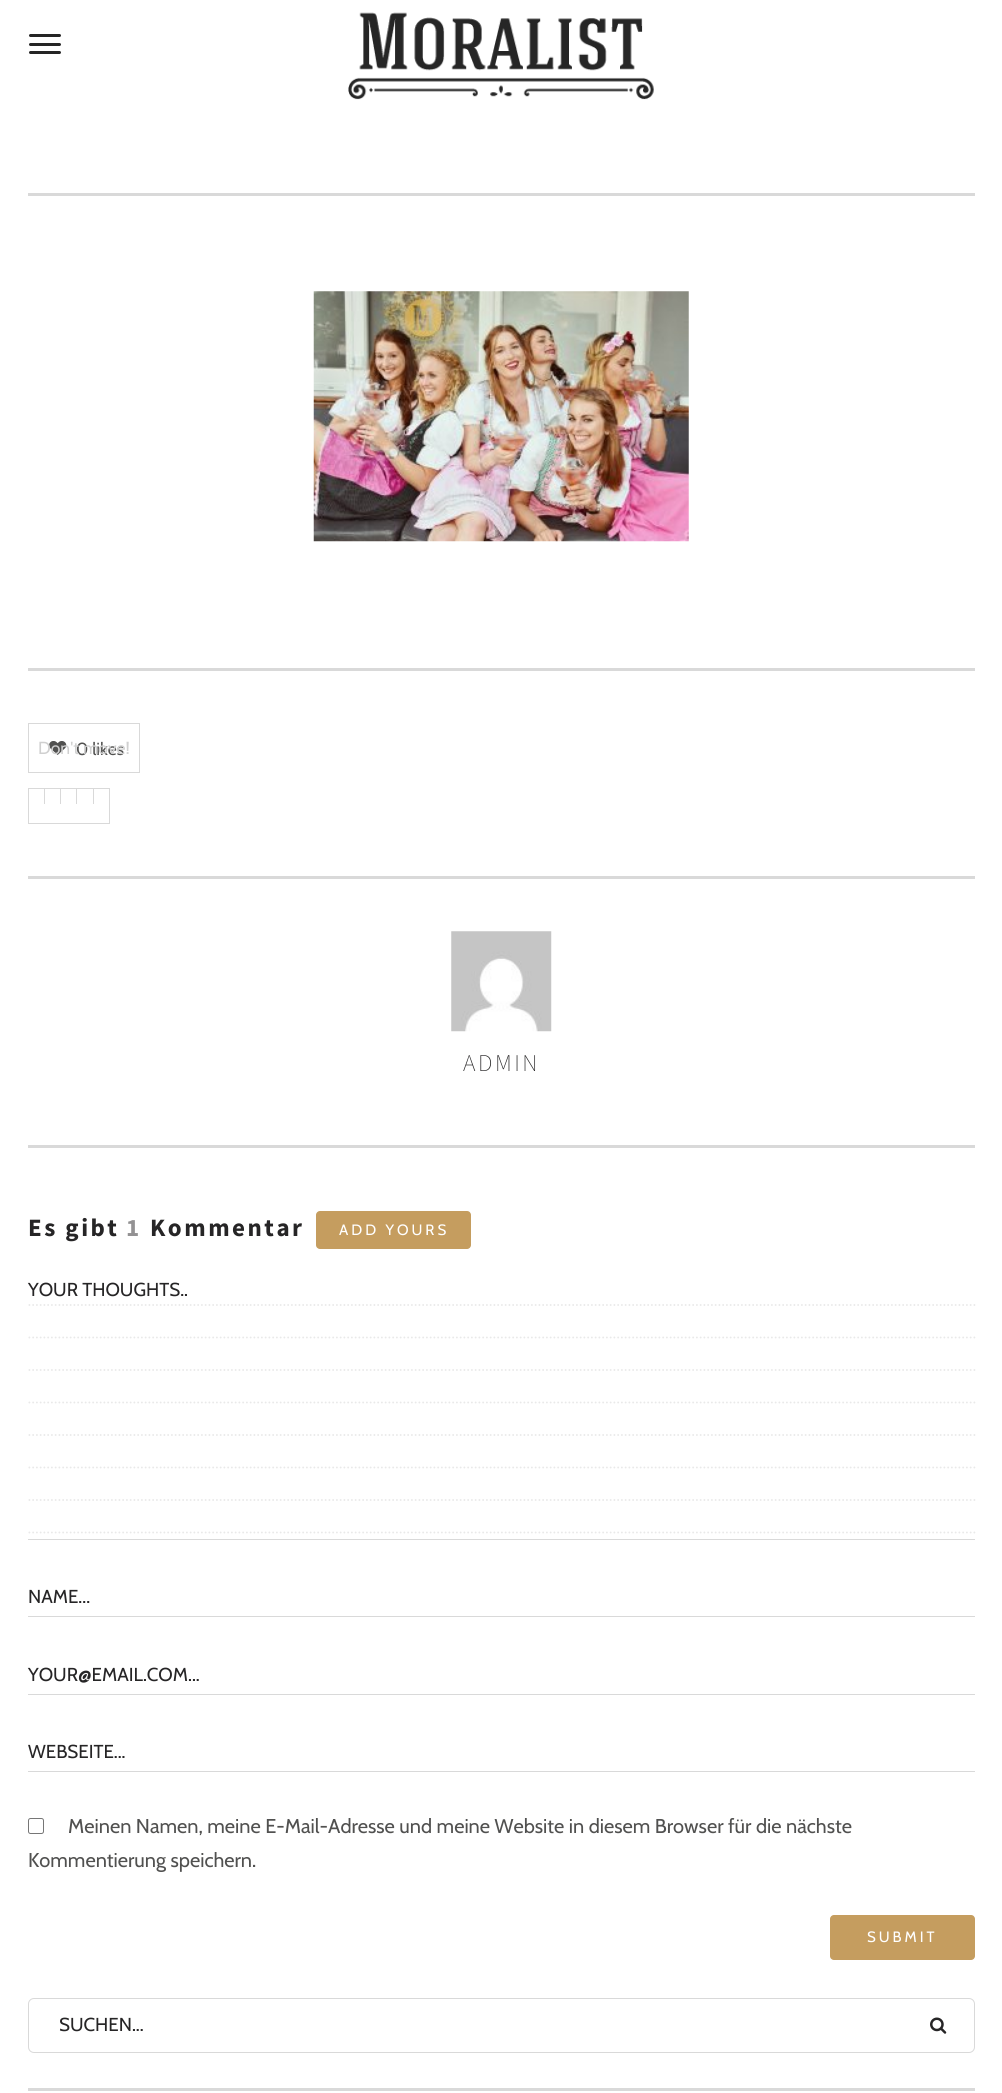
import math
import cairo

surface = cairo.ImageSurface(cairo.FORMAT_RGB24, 1002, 2093)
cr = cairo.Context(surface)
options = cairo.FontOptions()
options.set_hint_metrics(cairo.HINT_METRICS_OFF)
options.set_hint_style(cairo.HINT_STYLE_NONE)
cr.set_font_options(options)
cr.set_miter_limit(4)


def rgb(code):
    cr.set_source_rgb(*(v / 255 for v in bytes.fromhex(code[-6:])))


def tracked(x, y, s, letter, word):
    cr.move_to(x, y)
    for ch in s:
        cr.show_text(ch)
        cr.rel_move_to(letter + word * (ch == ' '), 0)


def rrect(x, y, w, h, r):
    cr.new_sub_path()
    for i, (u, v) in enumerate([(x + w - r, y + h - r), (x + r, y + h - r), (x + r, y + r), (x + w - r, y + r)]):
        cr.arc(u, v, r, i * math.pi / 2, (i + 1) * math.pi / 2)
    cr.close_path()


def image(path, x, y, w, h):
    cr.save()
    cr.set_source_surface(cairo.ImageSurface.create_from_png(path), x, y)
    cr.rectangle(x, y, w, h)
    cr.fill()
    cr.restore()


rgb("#ffffff")
cr.paint()
rgb("#252525")
rrect(29, 43, 32, 3, 1.5)
cr.fill()
rrect(29, 34, 32, 3, 1.5)
cr.fill()
rrect(29, 51, 32, 3, 1.5)
cr.fill()
image("img/1.png", 348, 12, 306, 88)
rgb("#d9d9d9")
cr.rectangle(28, 193, 947, 3)
cr.fill()
image("img/2.png", 313, 291, 376, 251)
cr.rectangle(28, 668, 947, 3)
cr.fill()
cr.rectangle(28.5, 723.5, 111, 49)
cr.set_line_width(1)
cr.stroke()
image("img/3.png", 49, 741, 18, 14)
cr.rectangle(28.5, 788.5, 81, 35)
cr.stroke()
for x, y, w, h, color in [
    (44, 789, 1, 15, "#d9d9d9"),
    (60, 789, 1, 15, "#d9d9d9"),
    (76, 789, 1, 15, "#d9d9d9"),
    (93, 789, 1, 15, "#d9d9d9"),
    (28, 876, 947, 3, "#d9d9d9"),
]:
    rgb(color)
    cr.rectangle(x, y, w, h)
    cr.fill()
image("img/4.png", 451, 931, 101, 101)
cr.rectangle(28, 1145, 947, 3)
cr.fill()
rgb("#c59d5f")
rrect(316, 1211, 155, 38, 4)
cr.fill()
rgb("#d9d9d9")
cr.rectangle(28, 1539, 947, 1)
cr.fill()
cr.new_path()
cr.move_to(29.4, 1305)
cr.line_to(974.6, 1305)
rgb("#e9e9e9")
cr.set_line_width(1.9)
cr.set_line_cap(cairo.LINE_CAP_ROUND)
cr.set_dash([0, 3.75])
cr.stroke()
cr.new_path()
cr.move_to(29.4, 1337.5)
cr.line_to(974.6, 1337.5)
cr.stroke()
cr.new_path()
cr.move_to(29.4, 1370)
cr.line_to(974.6, 1370)
cr.stroke()
cr.new_path()
cr.move_to(29.4, 1402.5)
cr.line_to(974.6, 1402.5)
cr.stroke()
cr.new_path()
cr.move_to(29.4, 1435)
cr.line_to(974.6, 1435)
cr.stroke()
cr.new_path()
cr.move_to(29.4, 1467.5)
cr.line_to(974.6, 1467.5)
cr.stroke()
cr.new_path()
cr.move_to(29.4, 1500)
cr.line_to(974.6, 1500)
cr.stroke()
cr.new_path()
cr.move_to(29.4, 1532.5)
cr.line_to(974.6, 1532.5)
cr.stroke()
for x, y, w, h, color in [
    (28, 1616, 947, 1, "#d9d9d9"),
    (28, 1694, 947, 1, "#d9d9d9"),
    (28, 1771, 947, 1, "#d9d9d9"),
]:
    rgb(color)
    cr.rectangle(x, y, w, h)
    cr.fill()
rrect(28.5, 1818.5, 15, 15, 2)
rgb("#767676")
cr.set_line_width(1)
cr.set_line_cap(cairo.LINE_CAP_BUTT)
cr.set_dash([])
cr.stroke()
rgb("#c59d5f")
rrect(830, 1915, 145, 45, 4)
cr.fill()
rgb("#d9d9d9")
cr.rectangle(28, 2088, 947, 3)
cr.fill()
rrect(28.5, 1998.5, 946, 54, 5.5)
cr.stroke()
image("img/5.png", 930, 2017, 17, 17)
cr.select_font_face("Cabin")
cr.set_font_size(17.5)
rgb("#515150")
cr.move_to(76, 755)
cr.show_text("0 likes")
rgb("#d0d0d0")
cr.move_to(38, 754)
cr.show_text("Don't move!")
cr.select_font_face("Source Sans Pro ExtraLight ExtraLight")
cr.set_font_size(24)
rgb("#262526")
tracked(463, 1071, "ADMIN", 2.5, 0)
cr.select_font_face("Source Sans Pro", cairo.FONT_SLANT_NORMAL, cairo.FONT_WEIGHT_BOLD)
cr.set_font_size(25)
tracked(28, 1236, "Es gibt", 2.5, 0)
rgb("#939293")
tracked(126, 1236, "1", 2.5, 0)
rgb("#262526")
tracked(150, 1236, "Kommentar", 2.5, 0)
cr.select_font_face("Cabin")
cr.set_font_size(15)
rgb("#ffffff")
tracked(339, 1235, "ADD YOURS", 3, 0)
cr.set_font_size(18.75)
rgb("#262526")
for x, y, s in [
    (28, 1296, "YOUR THOUGHTS.."),
    (28, 1603, "NAME..."),
    (28, 1681, "YOUR@EMAIL.COM..."),
    (28, 1758, "WEBSEITE..."),
]:
    cr.move_to(x, y)
    cr.show_text(s)
cr.set_font_size(20)
rgb("#515150")
cr.move_to(68, 1833)
cr.show_text("Meinen Namen, meine E-Mail-Adresse und meine Website in diesem Browser für die nächste")
cr.move_to(28, 1867)
cr.show_text("Kommentierung speichern.")
cr.set_font_size(15)
rgb("#ffffff")
tracked(867, 1942, "SUBMIT", 3, 0)
cr.set_font_size(18.75)
rgb("#262526")
cr.move_to(59, 2031)
cr.show_text("SUCHEN...")
surface.write_to_png("page.png")
